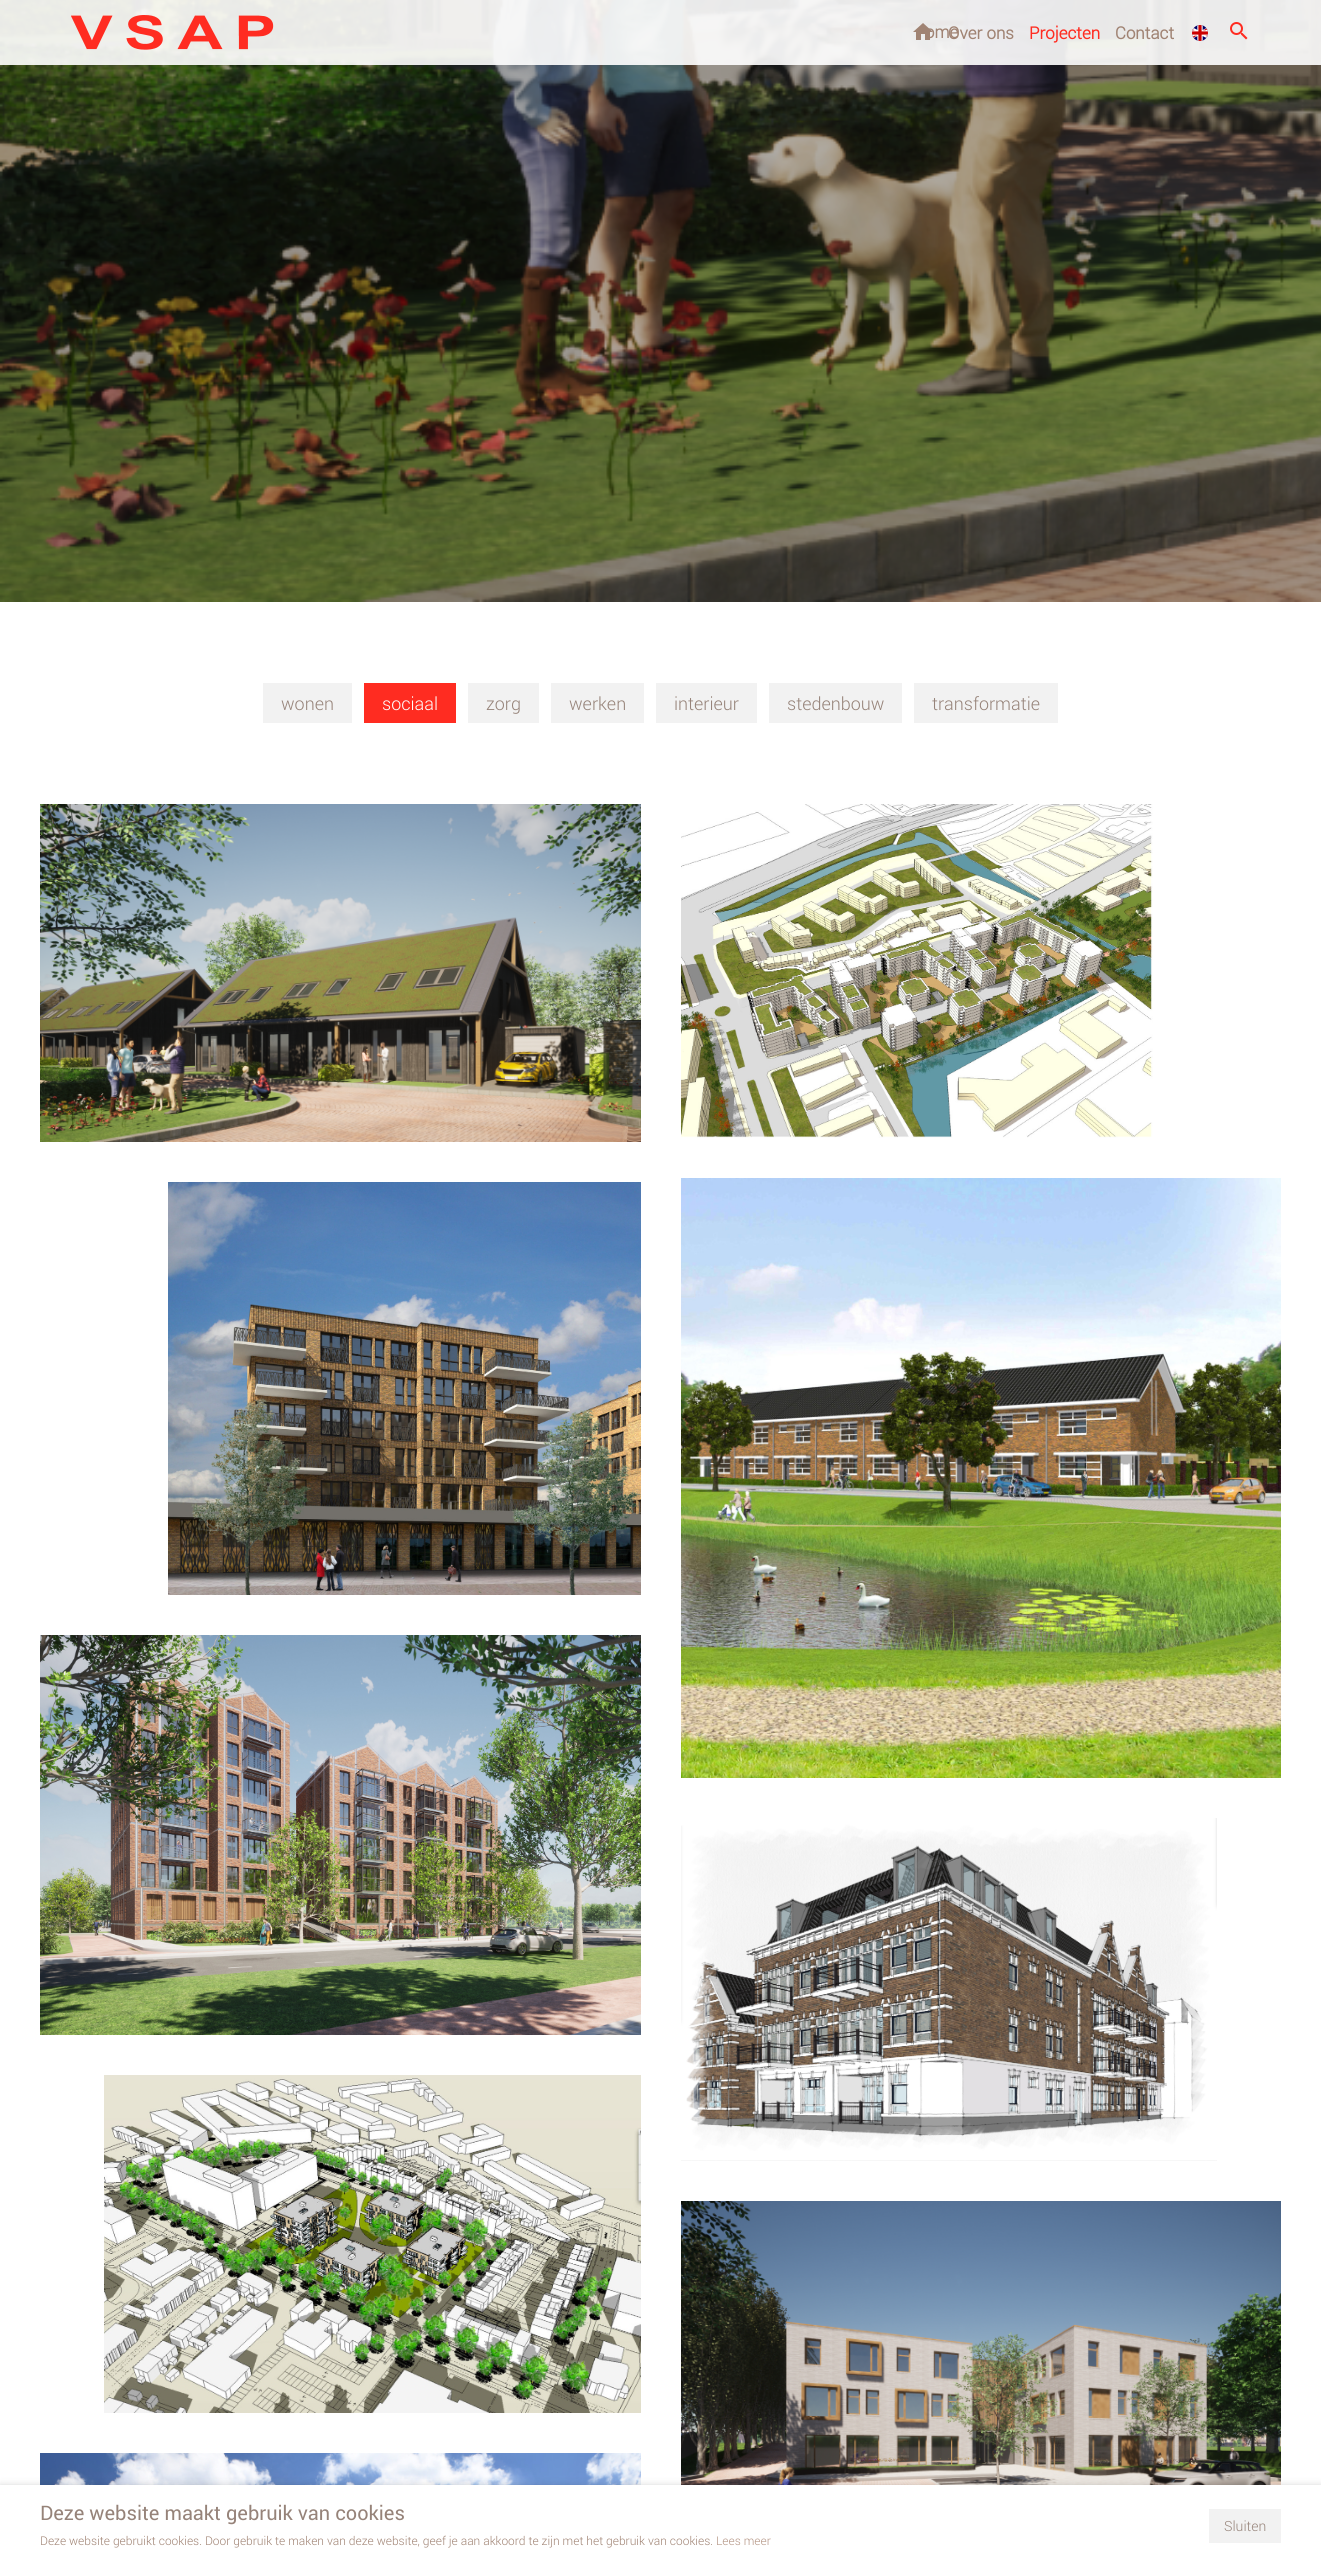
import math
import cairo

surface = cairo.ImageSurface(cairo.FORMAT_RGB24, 1321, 2566)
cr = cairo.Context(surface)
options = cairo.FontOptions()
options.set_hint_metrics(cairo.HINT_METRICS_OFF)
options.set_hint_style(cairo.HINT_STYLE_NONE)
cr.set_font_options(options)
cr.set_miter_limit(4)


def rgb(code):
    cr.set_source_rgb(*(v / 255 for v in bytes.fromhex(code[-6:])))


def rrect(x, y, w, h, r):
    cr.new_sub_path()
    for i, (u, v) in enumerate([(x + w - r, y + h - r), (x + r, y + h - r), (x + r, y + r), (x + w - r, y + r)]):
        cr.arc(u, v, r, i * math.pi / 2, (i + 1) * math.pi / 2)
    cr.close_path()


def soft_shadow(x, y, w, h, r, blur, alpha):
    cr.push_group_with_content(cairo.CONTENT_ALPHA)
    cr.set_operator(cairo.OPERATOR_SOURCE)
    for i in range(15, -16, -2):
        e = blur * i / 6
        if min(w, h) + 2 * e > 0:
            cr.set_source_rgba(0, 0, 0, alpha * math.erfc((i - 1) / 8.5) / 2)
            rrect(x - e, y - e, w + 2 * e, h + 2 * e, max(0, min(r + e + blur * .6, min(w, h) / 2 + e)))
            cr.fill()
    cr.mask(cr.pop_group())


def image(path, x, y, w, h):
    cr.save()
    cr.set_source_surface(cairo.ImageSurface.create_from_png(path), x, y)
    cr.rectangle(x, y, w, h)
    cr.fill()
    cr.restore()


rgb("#ffffff")
cr.paint()
image("img/1.png", 0, 0, 1321, 602)
cr.set_source_rgba(1, 1, 1, 0.9)
cr.rectangle(0, 0, 1321, 65)
cr.fill()
image("img/2.png", 71, 15, 203, 35)
image("img/3.png", 913, 23, 20, 17)
image("img/4.png", 1192, 25, 16, 16)
image("img/5.png", 1230, 22, 18, 18)
for x, y, w, h, color in [
    (263, 683, 89, 40, "#f2f2f2"),
    (364, 683, 92, 40, "#ff2c21"),
    (468, 683, 71, 40, "#f2f2f2"),
    (551, 683, 93, 40, "#f2f2f2"),
    (656, 683, 101, 40, "#f2f2f2"),
    (769, 683, 133, 40, "#f2f2f2"),
    (914, 683, 144, 40, "#f2f2f2"),
]:
    rgb(color)
    cr.rectangle(x, y, w, h)
    cr.fill()
image("img/6.png", 40, 804, 601, 338)
image("img/7.png", 168, 1182, 473, 413)
image("img/8.png", 40, 1635, 601, 400)
image("img/9.png", 104, 2075, 537, 338)
image("img/10.png", 40, 2453, 601, 32)
image("img/11.png", 681, 804, 472, 334)
image("img/12.png", 681, 1178, 600, 600)
image("img/13.png", 681, 1818, 536, 343)
image("img/14.png", 681, 2201, 600, 284)
rgb("#000000")
soft_shadow(0, 2486, 1321, 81, 0, 4, 0.2)
rgb("#ffffff")
cr.rectangle(0, 2485, 1321, 81)
cr.fill()
rgb("#f2f2f2")
cr.rectangle(1209, 2509, 72, 34)
cr.fill()
cr.select_font_face("Roboto", cairo.FONT_SLANT_NORMAL, cairo.FONT_WEIGHT_BOLD)
cr.set_font_size(17)
rgb("#a08373")
cr.move_to(925, 38)
cr.show_text("ome")
cr.move_to(948, 39)
cr.show_text("Over ons")
rgb("#ff2c21")
cr.move_to(1029, 39)
cr.show_text("Projecten")
rgb("#a08373")
cr.move_to(1115, 39)
cr.show_text("Contact")
cr.select_font_face("Roboto Light")
cr.set_font_size(18)
rgb("#968379")
cr.move_to(281, 710)
cr.show_text("wonen")
rgb("#ffffff")
cr.move_to(382, 710)
cr.show_text("sociaal")
rgb("#968379")
for x, y, s in [
    (486, 710, "zorg"),
    (569, 710, "werken"),
    (674, 710, "interieur"),
    (787, 710, "stedenbouw"),
    (932, 710, "transformatie"),
]:
    cr.move_to(x, y)
    cr.show_text(s)
cr.select_font_face("Roboto")
cr.set_font_size(20)
cr.move_to(40, 2520)
cr.show_text("Deze website maakt gebruik van cookies")
cr.select_font_face("Roboto Light")
cr.set_font_size(12)
rgb("#a08373")
cr.move_to(40, 2545)
cr.show_text("Deze website gebruikt cookies. Door gebruik te maken van deze website, geef je aan akkoord te zijn met het gebruik van cookies.")
rgb("#b39382")
cr.move_to(716, 2545)
cr.show_text("Lees meer")
cr.set_font_size(14)
rgb("#968379")
cr.move_to(1224, 2531)
cr.show_text("Sluiten")
surface.write_to_png("page.png")
